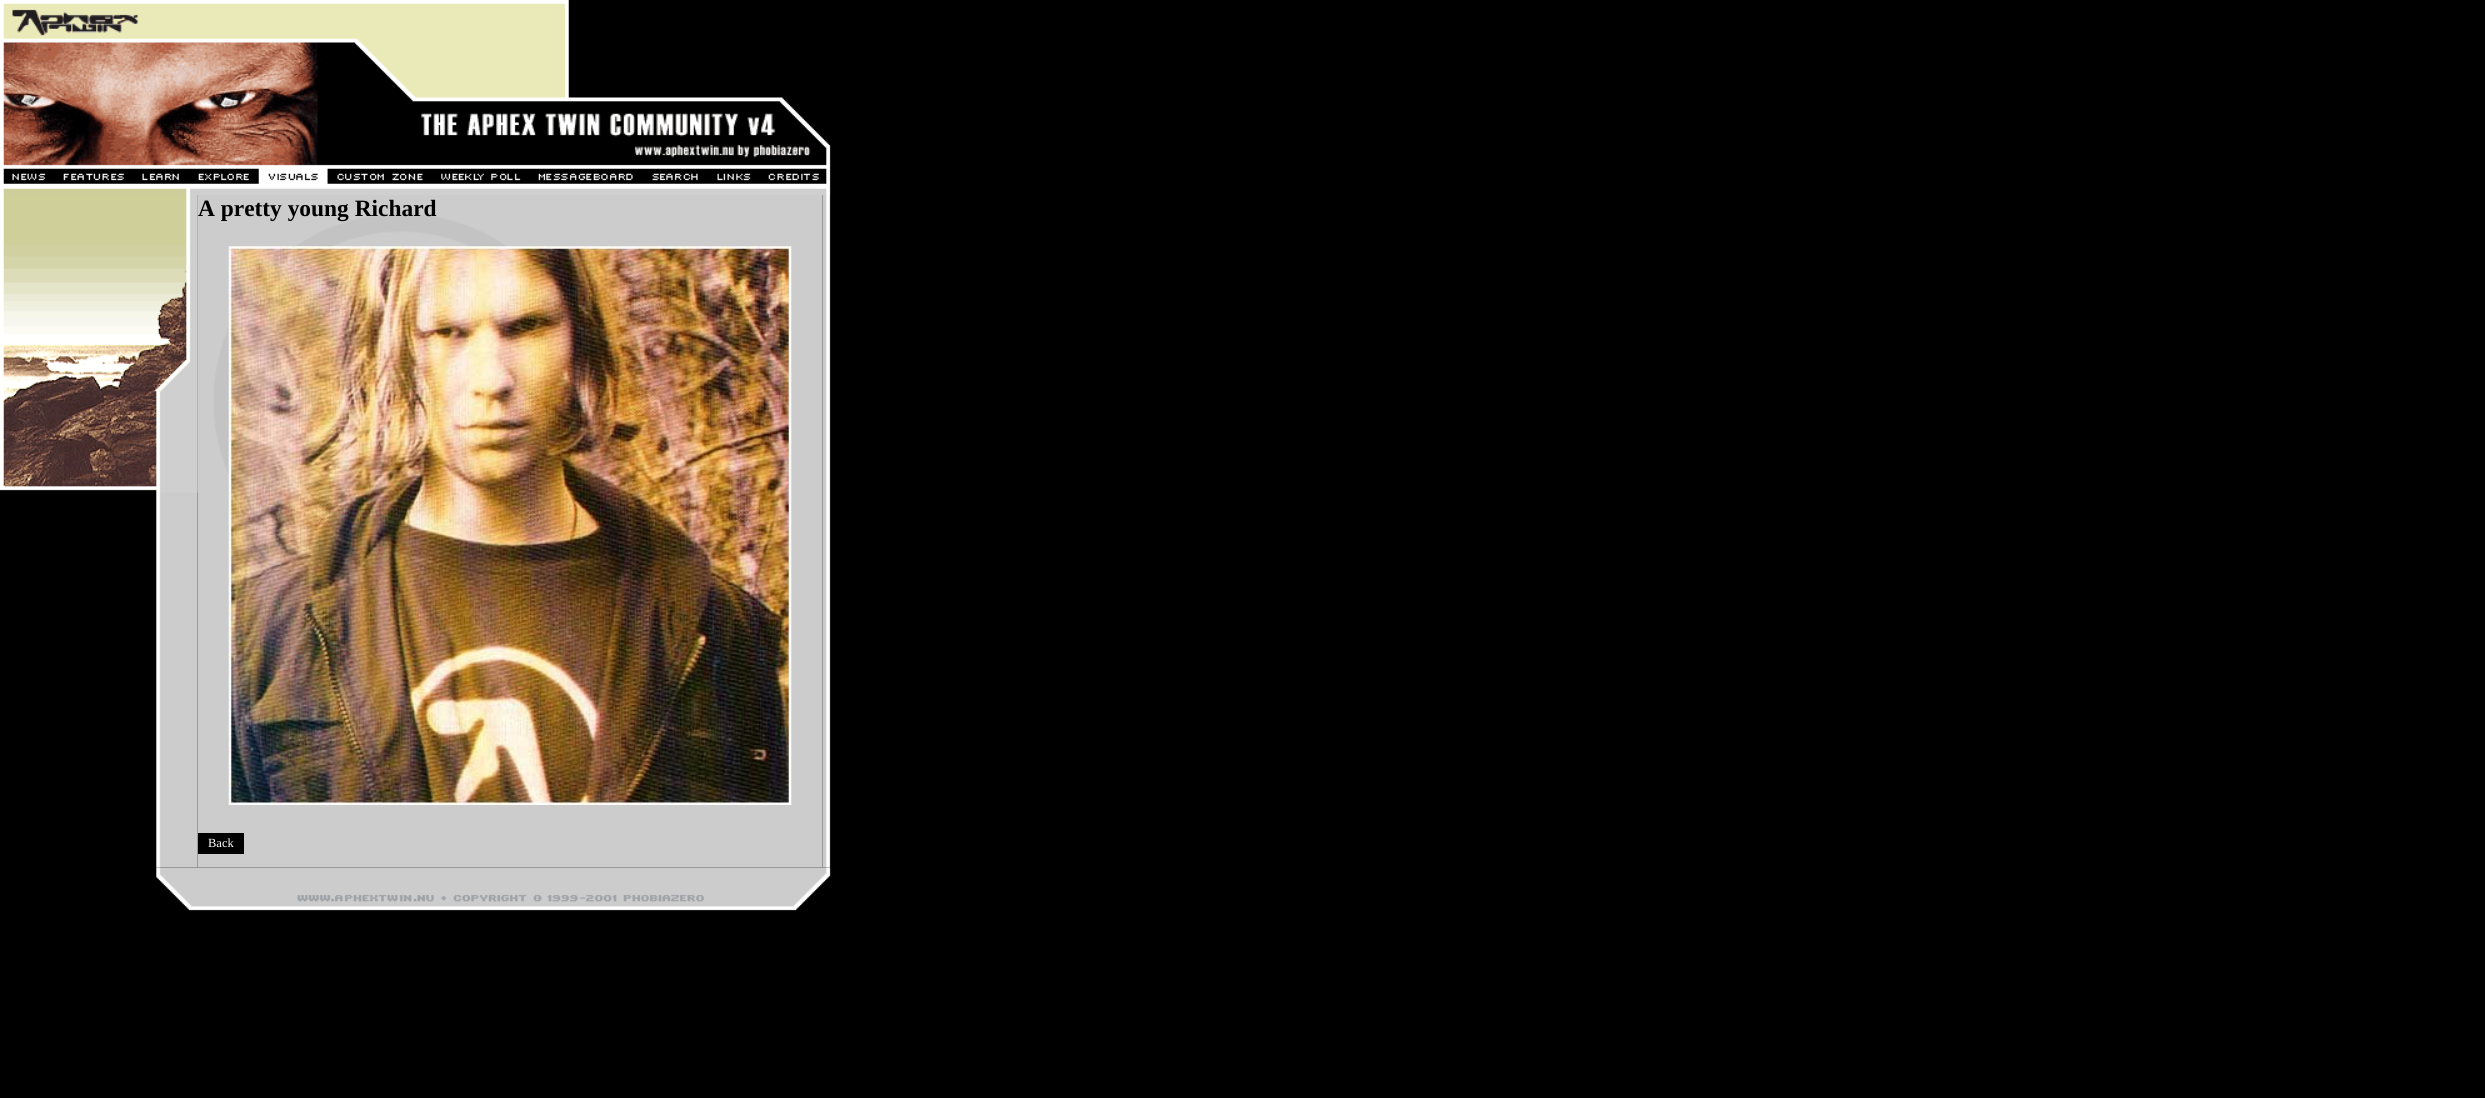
import math
import cairo

surface = cairo.ImageSurface(cairo.FORMAT_RGB24, 2485, 1098)
cr = cairo.Context(surface)
options = cairo.FontOptions()
options.set_hint_metrics(cairo.HINT_METRICS_OFF)
options.set_hint_style(cairo.HINT_STYLE_NONE)
cr.set_font_options(options)
cr.set_miter_limit(4)


def rgb(code):
    cr.set_source_rgb(*(v / 255 for v in bytes.fromhex(code[-6:])))


def image(path, x, y, w, h):
    cr.save()
    cr.set_source_surface(cairo.ImageSurface.create_from_png(path), x, y)
    cr.rectangle(x, y, w, h)
    cr.fill()
    cr.restore()


rgb("#000000")
cr.paint()
image("img/1.png", 0, 0, 831, 195)
image("img/2.png", 3, 163, 816, 26)
image("img/3.png", 156, 195, 42, 673)
image("img/5.png", 197, 195, 626, 673)
image("img/4.png", 0, 195, 198, 298)
image("img/6.png", 228, 246, 564, 559)
rgb("#000000")
cr.rectangle(198, 833, 46, 21)
cr.fill()
image("img/7.png", 822, 195, 9, 673)
image("img/8.png", 156, 867, 675, 44)
cr.select_font_face("Liberation Serif", cairo.FONT_SLANT_NORMAL, cairo.FONT_WEIGHT_BOLD)
cr.set_font_size(23.4)
cr.move_to(198, 216)
cr.show_text("A pretty young Richard")
cr.select_font_face("Liberation Serif")
cr.set_font_size(12.5)
rgb("#ffffff")
cr.move_to(208, 847)
cr.show_text("Back")
surface.write_to_png("page.png")
